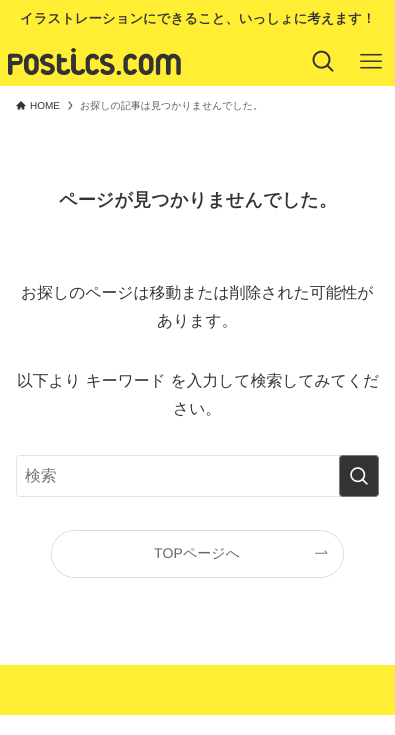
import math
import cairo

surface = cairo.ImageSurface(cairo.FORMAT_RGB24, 395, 735)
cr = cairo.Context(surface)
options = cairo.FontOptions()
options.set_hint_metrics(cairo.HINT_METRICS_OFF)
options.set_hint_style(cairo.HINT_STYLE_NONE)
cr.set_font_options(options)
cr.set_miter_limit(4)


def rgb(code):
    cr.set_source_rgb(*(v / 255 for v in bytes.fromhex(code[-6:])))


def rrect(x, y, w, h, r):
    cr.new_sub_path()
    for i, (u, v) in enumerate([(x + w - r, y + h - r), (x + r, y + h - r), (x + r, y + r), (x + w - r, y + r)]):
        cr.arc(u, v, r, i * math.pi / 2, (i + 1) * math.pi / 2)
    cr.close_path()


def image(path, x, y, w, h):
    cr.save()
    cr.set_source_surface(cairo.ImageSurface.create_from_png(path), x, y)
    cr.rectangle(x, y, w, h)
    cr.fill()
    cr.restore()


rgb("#ffffff")
cr.paint()
rgb("#ffee33")
cr.rectangle(0, 0, 395, 86)
cr.fill()
image("img/1.png", 8, 48, 173, 27)
image("img/2.png", 312, 50, 22, 22)
image("img/3.png", 360, 53, 22, 16)
image("img/4.png", 16, 101, 10, 9)
rgb("#5c5c5c")
cr.new_path()
cr.move_to(69.5, 101.5)
cr.line_to(68, 101.5)
cr.line_to(71, 105.5)
cr.line_to(68, 109.5)
cr.line_to(69.5, 109.5)
cr.line_to(72.5, 105.5)
cr.close_path()
cr.fill()
rrect(16.5, 455.5, 362, 41, 3.5)
rgb("#e3e3e3")
cr.set_line_width(1)
cr.stroke()
rgb("#333333")
rrect(339, 455, 40, 42, 4)
cr.fill()
rrect(339.5, 455.5, 39, 41, 3.5)
cr.set_source_rgba(0.78, 0.78, 0.78, 0.5)
cr.stroke()
image("img/5.png", 350, 467, 18, 18)
rrect(51.5, 530.5, 292, 47, 23.5)
rgb("#dcdcdc")
cr.stroke()
rgb("#ffffff")
rrect(52, 531, 291, 46, 23)
cr.fill()
image("img/6.png", 315, 550, 13, 4)
rgb("#ffee33")
cr.rectangle(0, 665, 395, 50)
cr.fill()
cr.select_font_face("WenQuanYi Zen Hei", cairo.FONT_SLANT_NORMAL, cairo.FONT_WEIGHT_BOLD)
cr.set_font_size(13.4)
rgb("#333333")
cr.move_to(20, 23)
cr.show_text("イラストレーションにできること、いっしょに考えます！")
cr.select_font_face("Liberation Sans")
cr.set_font_size(10)
cr.move_to(30, 109)
cr.show_text("HOME")
cr.select_font_face("WenQuanYi Zen Hei Medium")
rgb("#5c5c5c")
cr.move_to(80, 109)
cr.show_text("お探しの記事は見つかりませんでした。")
cr.select_font_face("WenQuanYi Zen Hei", cairo.FONT_SLANT_NORMAL, cairo.FONT_WEIGHT_BOLD)
cr.set_font_size(18.2)
rgb("#333333")
cr.move_to(59, 206)
cr.show_text("ページが見つかりませんでした。")
cr.select_font_face("WenQuanYi Zen Hei Medium")
cr.set_font_size(15.8)
for x, y, s in [
    (21, 298, "お探しのページは移動または削除された可能性が"),
    (157, 326, "あります。"),
    (17, 386, "以下より キーワード を入力して検索してみてくだ"),
    (173, 414, "さい。"),
]:
    cr.move_to(x, y)
    cr.show_text(s)
rgb("#757575")
cr.move_to(25, 481)
cr.show_text("検索")
cr.select_font_face("Liberation Sans")
cr.set_font_size(14)
rgb("#666666")
cr.move_to(154, 558)
cr.show_text("TOP")
cr.select_font_face("WenQuanYi Zen Hei Medium")
cr.move_to(183, 558)
cr.show_text("ページへ")
surface.write_to_png("page.png")
